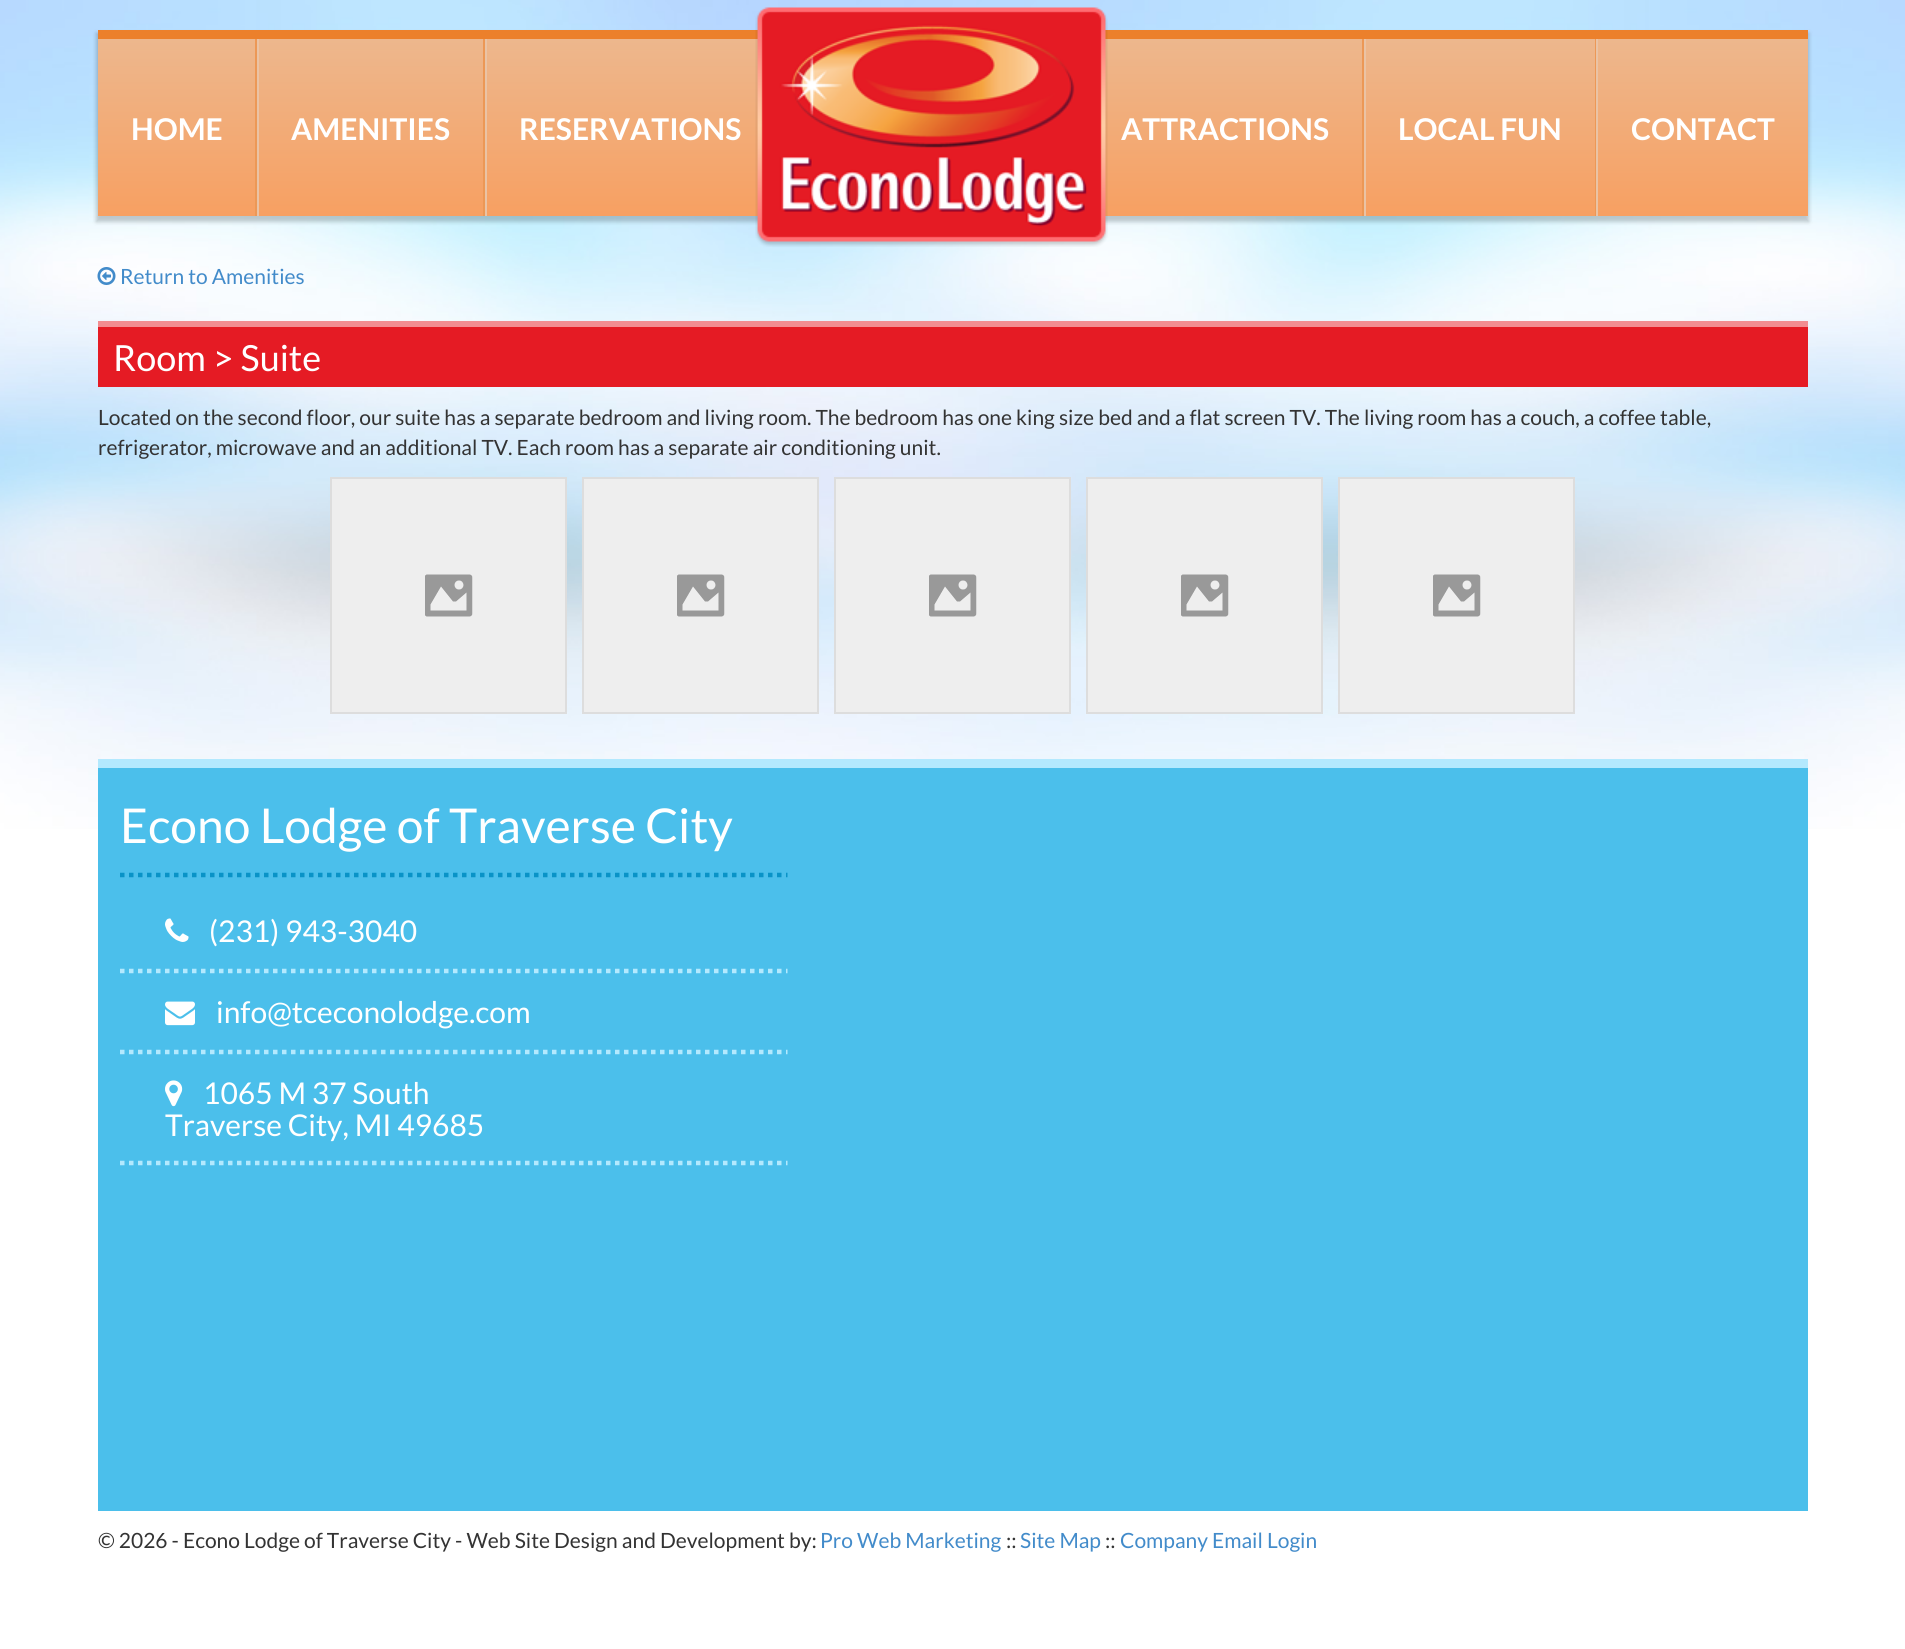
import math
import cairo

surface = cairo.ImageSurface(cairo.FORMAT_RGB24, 1905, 1649)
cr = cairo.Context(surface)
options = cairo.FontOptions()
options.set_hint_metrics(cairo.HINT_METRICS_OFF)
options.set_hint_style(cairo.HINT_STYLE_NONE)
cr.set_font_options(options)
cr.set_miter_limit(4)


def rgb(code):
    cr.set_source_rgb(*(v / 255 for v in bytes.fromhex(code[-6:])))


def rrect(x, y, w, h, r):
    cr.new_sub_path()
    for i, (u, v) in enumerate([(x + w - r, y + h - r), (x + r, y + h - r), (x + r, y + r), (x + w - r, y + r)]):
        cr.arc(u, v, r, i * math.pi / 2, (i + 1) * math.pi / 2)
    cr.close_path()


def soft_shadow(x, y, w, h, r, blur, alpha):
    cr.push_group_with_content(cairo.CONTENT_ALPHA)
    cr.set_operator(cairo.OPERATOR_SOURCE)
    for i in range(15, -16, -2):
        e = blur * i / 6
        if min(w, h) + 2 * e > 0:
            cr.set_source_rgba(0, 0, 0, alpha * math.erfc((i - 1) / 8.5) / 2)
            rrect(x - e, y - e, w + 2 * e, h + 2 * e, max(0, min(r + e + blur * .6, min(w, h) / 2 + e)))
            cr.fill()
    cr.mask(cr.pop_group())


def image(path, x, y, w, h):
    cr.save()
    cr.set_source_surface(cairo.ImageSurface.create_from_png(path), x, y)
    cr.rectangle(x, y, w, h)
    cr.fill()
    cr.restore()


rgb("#ffffff")
cr.paint()
image("img/1.png", 0, 0, 1905, 829)
rgb("#000000")
soft_shadow(96, 33, 1713, 189, 0, 2, 0.2)
rgb("#ec802b")
cr.rectangle(98, 30, 660, 9)
cr.fill()
gradient = cairo.LinearGradient(630, 39, 630, 216)
gradient.add_color_stop_rgba(0, 0.929, 0.718, 0.553, 1)
gradient.add_color_stop_rgba(1, 0.969, 0.627, 0.384, 1)
cr.set_source(gradient)
cr.rectangle(487, 39, 271, 177)
cr.fill()
rgb("#ec802b")
cr.rectangle(1105, 30, 703, 9)
cr.fill()
gradient = cairo.LinearGradient(1225, 39, 1225, 216)
gradient.add_color_stop_rgba(0, 0.929, 0.718, 0.553, 1)
gradient.add_color_stop_rgba(1, 0.969, 0.627, 0.384, 1)
cr.set_source(gradient)
cr.rectangle(1105, 39, 257, 177)
cr.fill()
image("img/2.png", 755, 7, 353, 240)
gradient = cairo.LinearGradient(176, 39, 176, 216)
gradient.add_color_stop_rgba(0, 0.929, 0.718, 0.553, 1)
gradient.add_color_stop_rgba(1, 0.969, 0.627, 0.384, 1)
cr.set_source(gradient)
cr.rectangle(98, 39, 157, 177)
cr.fill()
rgb("#ec9856")
cr.rectangle(255, 39, 2, 177)
cr.fill()
gradient = cairo.LinearGradient(371, 39, 371, 216)
gradient.add_color_stop_rgba(0, 0.929, 0.718, 0.553, 1)
gradient.add_color_stop_rgba(1, 0.969, 0.627, 0.384, 1)
cr.set_source(gradient)
cr.rectangle(259, 39, 224, 177)
cr.fill()
for x, y, w, h, color in [
    (483, 39, 2, 177, "#ec9856"),
    (257, 39, 2, 177, "#eac3a5"),
    (485, 39, 2, 177, "#eac3a5"),
    (1362, 39, 2, 177, "#ec9856"),
]:
    rgb(color)
    cr.rectangle(x, y, w, h)
    cr.fill()
gradient = cairo.LinearGradient(1480, 39, 1480, 216)
gradient.add_color_stop_rgba(0, 0.929, 0.718, 0.553, 1)
gradient.add_color_stop_rgba(1, 0.969, 0.627, 0.384, 1)
cr.set_source(gradient)
cr.rectangle(1366, 39, 229, 177)
cr.fill()
rgb("#ec9856")
cr.rectangle(1595, 39, 1, 177)
cr.fill()
rgb("#eac3a5")
cr.rectangle(1364, 39, 2, 177)
cr.fill()
gradient = cairo.LinearGradient(1703, 39, 1703, 216)
gradient.add_color_stop_rgba(0, 0.929, 0.718, 0.553, 1)
gradient.add_color_stop_rgba(1, 0.969, 0.627, 0.384, 1)
cr.set_source(gradient)
cr.rectangle(1598, 39, 210, 177)
cr.fill()
rgb("#eac3a5")
cr.rectangle(1596, 39, 2, 177)
cr.fill()
image("img/3.png", 97, 267, 19, 18)
rgb("#e51b24")
cr.rectangle(98, 327, 1710, 60)
cr.fill()
rgb("#f28d91")
cr.rectangle(98, 321, 1710, 6)
cr.fill()
rgb("#eeeeee")
cr.rectangle(331, 478, 235, 235)
cr.fill_preserve()
rgb("#dddddd")
cr.stroke()
image("img/4.png", 425, 574, 48, 43)
rgb("#eeeeee")
cr.rectangle(583, 478, 235, 235)
cr.fill_preserve()
rgb("#dddddd")
cr.stroke()
image("img/4.png", 677, 574, 48, 43)
rgb("#eeeeee")
cr.rectangle(835, 478, 235, 235)
cr.fill_preserve()
rgb("#dddddd")
cr.stroke()
image("img/4.png", 929, 574, 48, 43)
rgb("#eeeeee")
cr.rectangle(1087, 478, 235, 235)
cr.fill_preserve()
rgb("#dddddd")
cr.stroke()
image("img/4.png", 1181, 574, 48, 43)
rgb("#eeeeee")
cr.rectangle(1339, 478, 235, 235)
cr.fill_preserve()
rgb("#dddddd")
cr.stroke()
image("img/4.png", 1433, 574, 48, 43)
rgb("#4bbfeb")
cr.rectangle(98, 768, 1710, 743)
cr.fill()
rgb("#b3e9fe")
cr.rectangle(98, 759, 1710, 9)
cr.fill()
cr.new_path()
cr.move_to(120, 875)
cr.line_to(787.5, 875)
rgb("#0993c7")
cr.set_line_width(4.5)
cr.set_dash([4.5, 4.5])
cr.stroke()
cr.new_path()
cr.move_to(120, 971)
cr.line_to(787.5, 971)
rgb("#b3e9fe")
cr.stroke()
image("img/5.png", 165, 918, 24, 24)
cr.new_path()
cr.move_to(120, 1052)
cr.line_to(787.5, 1052)
cr.stroke()
image("img/6.png", 165, 1001, 30, 25)
cr.new_path()
cr.move_to(120, 1163)
cr.line_to(787.5, 1163)
cr.stroke()
image("img/7.png", 165, 1080, 18, 27)
cr.select_font_face("Lato", cairo.FONT_SLANT_NORMAL, cairo.FONT_WEIGHT_BOLD)
cr.set_font_size(30)
rgb("#ffffff")
for x, y, s in [
    (131, 140, "HOME"),
    (291, 140, "AMENITIES"),
    (519, 140, "RESERVATIONS"),
    (1121, 140, "ATTRACTIONS"),
    (1398, 140, "LOCAL FUN"),
    (1631, 140, "CONTACT"),
]:
    cr.move_to(x, y)
    cr.show_text(s)
cr.select_font_face("Lato")
cr.set_font_size(21)
rgb("#428bca")
cr.move_to(120, 284)
cr.show_text("Return to Amenities")
cr.set_font_size(36)
rgb("#ffffff")
cr.move_to(113, 371)
cr.show_text("Room > Suite")
cr.set_font_size(21)
rgb("#333333")
cr.move_to(98, 425)
cr.show_text("Located on the second floor, our suite has a separate bedroom and living room. The bedroom has one king size bed and a flat screen TV. The living room has a couch, a coffee table,")
cr.move_to(98, 455)
cr.show_text("refrigerator, microwave and an additional TV. Each room has a separate air conditioning unit.")
cr.set_font_size(48)
rgb("#ffffff")
cr.move_to(120, 843)
cr.show_text("Econo Lodge of Traverse City")
cr.set_font_size(30)
for x, y, s in [
    (209, 942, "(231) 943-3040"),
    (216, 1023, "info@tceconolodge.com"),
    (203, 1104, "1065 M 37 South"),
    (165, 1136, "Traverse City, MI 49685"),
]:
    cr.move_to(x, y)
    cr.show_text(s)
cr.set_font_size(21)
rgb("#333333")
cr.move_to(98, 1548)
cr.show_text("© 2026 - Econo Lodge of Traverse City - Web Site Design and Development by:")
rgb("#428bca")
cr.move_to(820, 1548)
cr.show_text("Pro Web Marketing")
rgb("#333333")
cr.move_to(1006, 1548)
cr.show_text("::")
rgb("#428bca")
cr.move_to(1020, 1548)
cr.show_text("Site Map")
rgb("#333333")
cr.move_to(1105, 1548)
cr.show_text("::")
rgb("#428bca")
cr.move_to(1120, 1548)
cr.show_text("Company Email Login")
surface.write_to_png("page.png")
